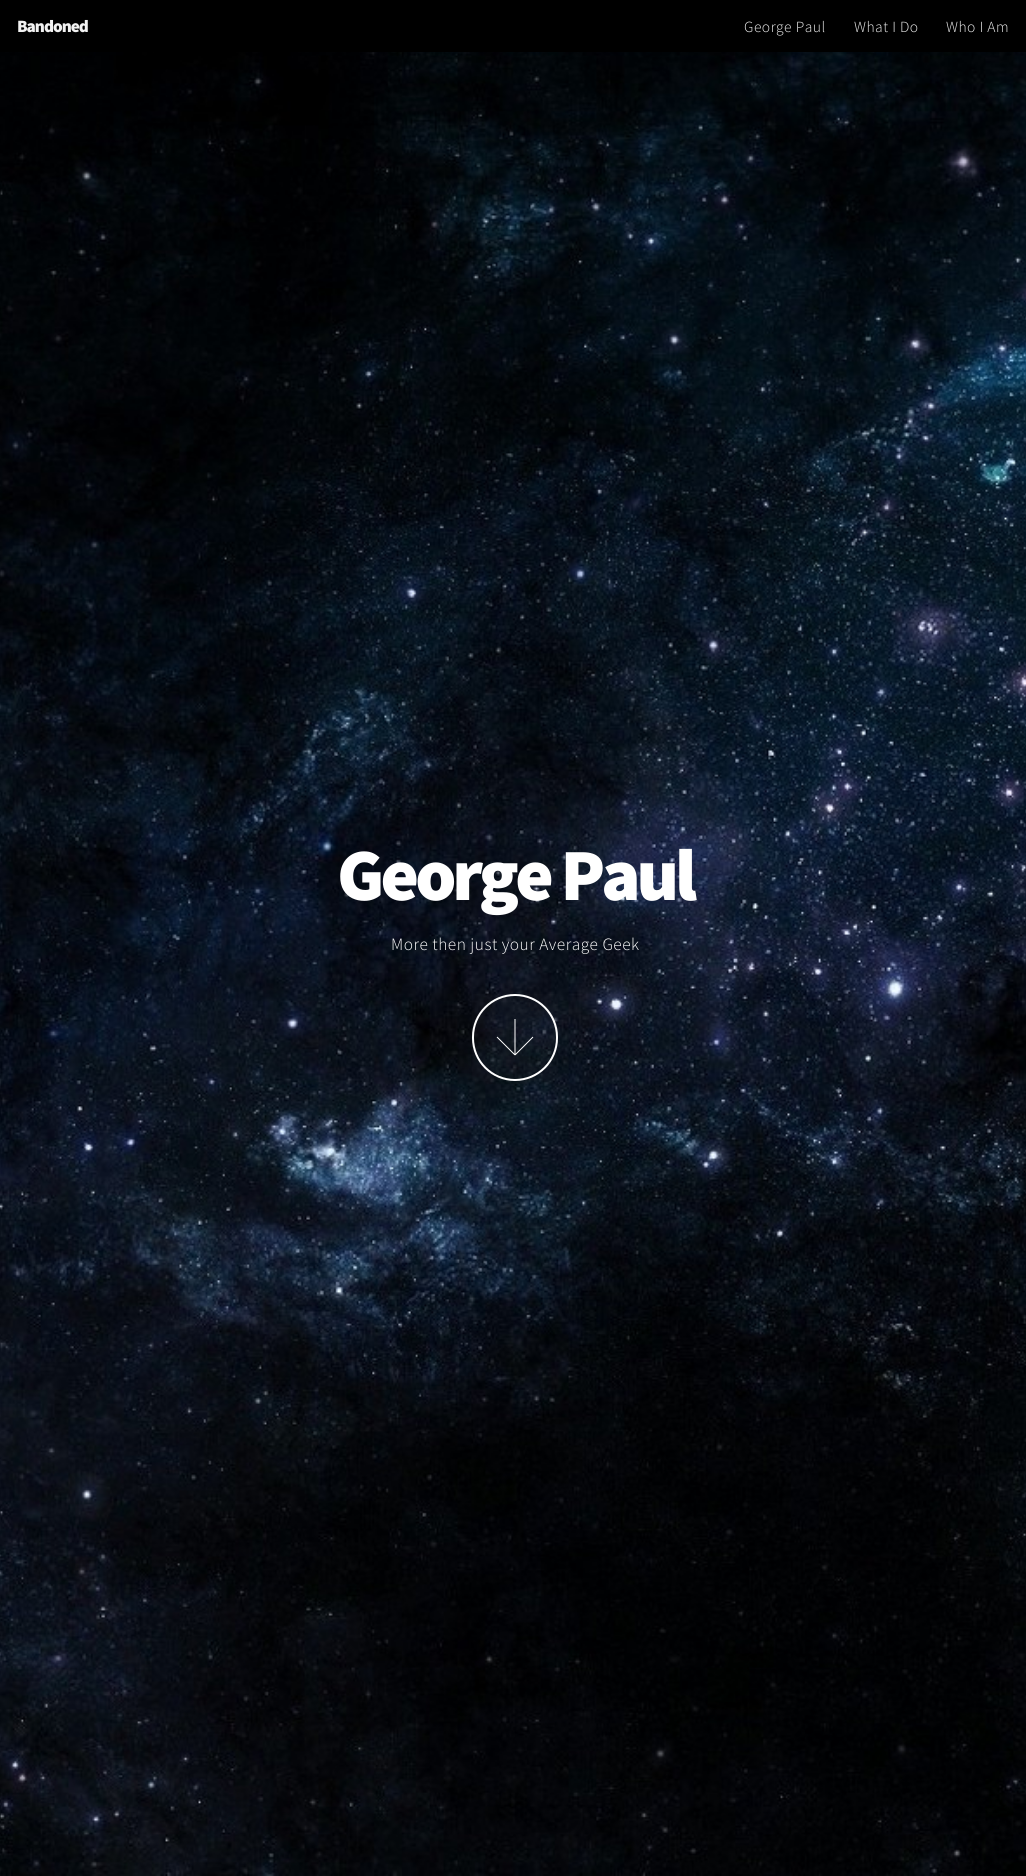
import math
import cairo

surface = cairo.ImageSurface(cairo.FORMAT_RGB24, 1026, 1876)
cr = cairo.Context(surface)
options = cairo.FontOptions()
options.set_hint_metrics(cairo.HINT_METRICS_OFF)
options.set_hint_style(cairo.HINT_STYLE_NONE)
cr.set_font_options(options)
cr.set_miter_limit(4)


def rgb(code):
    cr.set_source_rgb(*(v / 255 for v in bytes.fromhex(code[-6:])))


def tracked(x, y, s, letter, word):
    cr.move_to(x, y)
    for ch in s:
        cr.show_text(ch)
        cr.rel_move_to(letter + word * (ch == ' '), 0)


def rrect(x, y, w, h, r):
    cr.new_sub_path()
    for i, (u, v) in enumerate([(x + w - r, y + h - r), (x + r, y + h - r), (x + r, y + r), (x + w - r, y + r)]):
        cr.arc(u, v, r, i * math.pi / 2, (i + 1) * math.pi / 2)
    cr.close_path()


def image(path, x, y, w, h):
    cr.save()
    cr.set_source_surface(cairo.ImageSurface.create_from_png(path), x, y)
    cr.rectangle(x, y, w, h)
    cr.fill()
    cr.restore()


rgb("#ffffff")
cr.paint()
rgb("#000000")
cr.rectangle(0, 0, 1026, 52)
cr.fill()
image("img/1.png", 0, 52, 1026, 1824)
cr.set_source_rgba(0.251, 0.251, 0.251, 0.05)
cr.rectangle(472, 994, 86, 87)
cr.fill()
cr.new_path()
cr.move_to(497, 1037)
cr.line_to(515, 1055)
cr.move_to(533, 1037)
cr.line_to(515, 1055)
cr.move_to(515, 1055)
cr.line_to(515, 1019)
rgb("#ffffff")
cr.set_line_width(1)
cr.stroke()
rrect(473, 995, 84, 85, 42)
cr.set_line_width(2)
cr.stroke()
cr.select_font_face("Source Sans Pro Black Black")
cr.set_font_size(17.3)
rgb("#f2f2f2")
tracked(17, 32, "Bandoned", -1, 0)
cr.select_font_face("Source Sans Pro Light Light")
cr.set_font_size(15.5)
for x, y, s in [
    (744, 32, "George Paul"),
    (854, 32, "What I Do"),
    (946, 32, "Who I Am"),
]:
    tracked(x, y, s, 0.5, 0)
cr.select_font_face("Source Sans Pro Black Black")
cr.set_font_size(73.5)
rgb("#ffffff")
tracked(337, 900, "George Paul", -4, 0)
cr.select_font_face("Source Sans Pro Light Light")
cr.set_font_size(17.3)
tracked(391, 950, "More then just your Average Geek", 0.5, 0)
surface.write_to_png("page.png")
